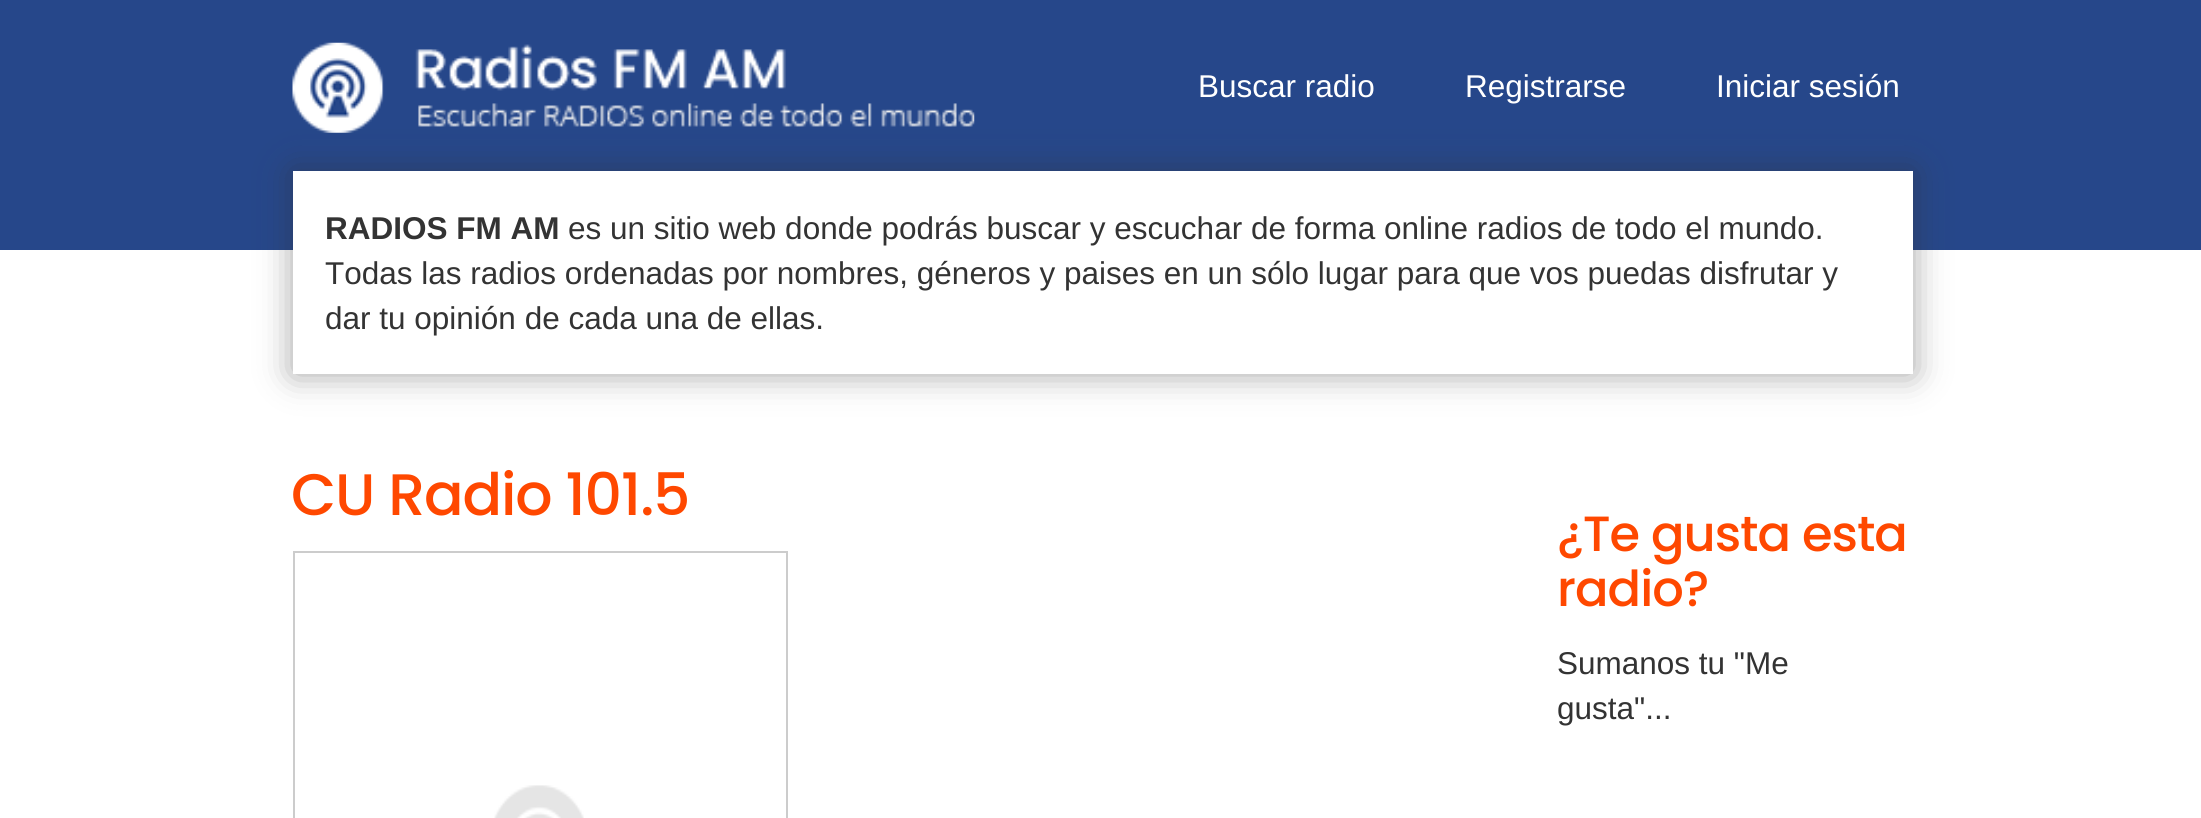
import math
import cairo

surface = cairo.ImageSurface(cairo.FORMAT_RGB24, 2201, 818)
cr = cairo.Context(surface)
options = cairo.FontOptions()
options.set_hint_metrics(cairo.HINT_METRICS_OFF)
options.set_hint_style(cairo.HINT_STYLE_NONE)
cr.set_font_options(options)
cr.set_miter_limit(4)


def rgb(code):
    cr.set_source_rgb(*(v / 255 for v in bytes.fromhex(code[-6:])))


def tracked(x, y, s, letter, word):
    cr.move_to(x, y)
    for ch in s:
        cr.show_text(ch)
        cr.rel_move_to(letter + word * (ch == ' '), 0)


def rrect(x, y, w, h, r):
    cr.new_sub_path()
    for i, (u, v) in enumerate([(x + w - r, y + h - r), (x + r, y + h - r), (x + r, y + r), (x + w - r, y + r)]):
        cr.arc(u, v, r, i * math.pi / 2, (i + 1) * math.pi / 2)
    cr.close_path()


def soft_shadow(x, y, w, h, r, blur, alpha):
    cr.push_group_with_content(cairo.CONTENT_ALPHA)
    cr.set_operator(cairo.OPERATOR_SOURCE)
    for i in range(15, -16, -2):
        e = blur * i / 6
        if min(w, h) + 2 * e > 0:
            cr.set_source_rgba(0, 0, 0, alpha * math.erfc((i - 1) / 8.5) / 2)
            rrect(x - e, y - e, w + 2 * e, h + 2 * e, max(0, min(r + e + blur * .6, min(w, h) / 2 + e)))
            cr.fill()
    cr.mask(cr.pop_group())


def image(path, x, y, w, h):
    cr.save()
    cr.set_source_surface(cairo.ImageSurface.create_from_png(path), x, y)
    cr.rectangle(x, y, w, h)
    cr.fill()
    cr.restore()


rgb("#ffffff")
cr.paint()
rgb("#26478a")
cr.rectangle(0, 0, 2201, 250)
cr.fill()
rgb("#323232")
soft_shadow(293, 171, 1620, 203, 0, 17, 0.45)
image("img/1.png", 292, 42, 683, 91)
rgb("#ffffff")
cr.rectangle(293, 171, 1620, 203)
cr.fill()
cr.rectangle(294, 552, 493, 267)
rgb("#cccccc")
cr.stroke()
image("img/2.png", 494, 785, 90, 33)
cr.select_font_face("Liberation Sans")
cr.set_font_size(31.5)
rgb("#ffffff")
for x, y, s in [
    (1198, 97, "Buscar radio"),
    (1465, 97, "Registrarse"),
    (1716, 97, "Iniciar sesión"),
]:
    cr.move_to(x, y)
    cr.show_text(s)
cr.select_font_face("Liberation Sans", cairo.FONT_SLANT_NORMAL, cairo.FONT_WEIGHT_BOLD)
rgb("#333333")
cr.move_to(325, 239)
cr.show_text("RADIOS FM AM")
cr.select_font_face("Liberation Sans")
for x, y, s in [
    (568, 239, "es un sitio web donde podrás buscar y escuchar de forma online radios de todo el mundo."),
    (325, 284, "Todas las radios ordenadas por nombres, géneros y paises en un sólo lugar para que vos puedas disfrutar y"),
    (325, 329, "dar tu opinión de cada una de ellas."),
]:
    cr.move_to(x, y)
    cr.show_text(s)
cr.select_font_face("Poppins Medium")
cr.set_font_size(58.5)
rgb("#ff4800")
tracked(291, 515, "CU Radio 101.5", -1.2, 0)
cr.set_font_size(49.5)
tracked(1557, 551, "¿Te gusta esta", -1, 0)
tracked(1557, 606, "radio?", -1, 0)
cr.select_font_face("Liberation Sans")
cr.set_font_size(31.5)
rgb("#333333")
cr.move_to(1557, 674)
cr.show_text("Sumanos tu \"Me")
cr.move_to(1557, 719)
cr.show_text("gusta\"...")
surface.write_to_png("page.png")
